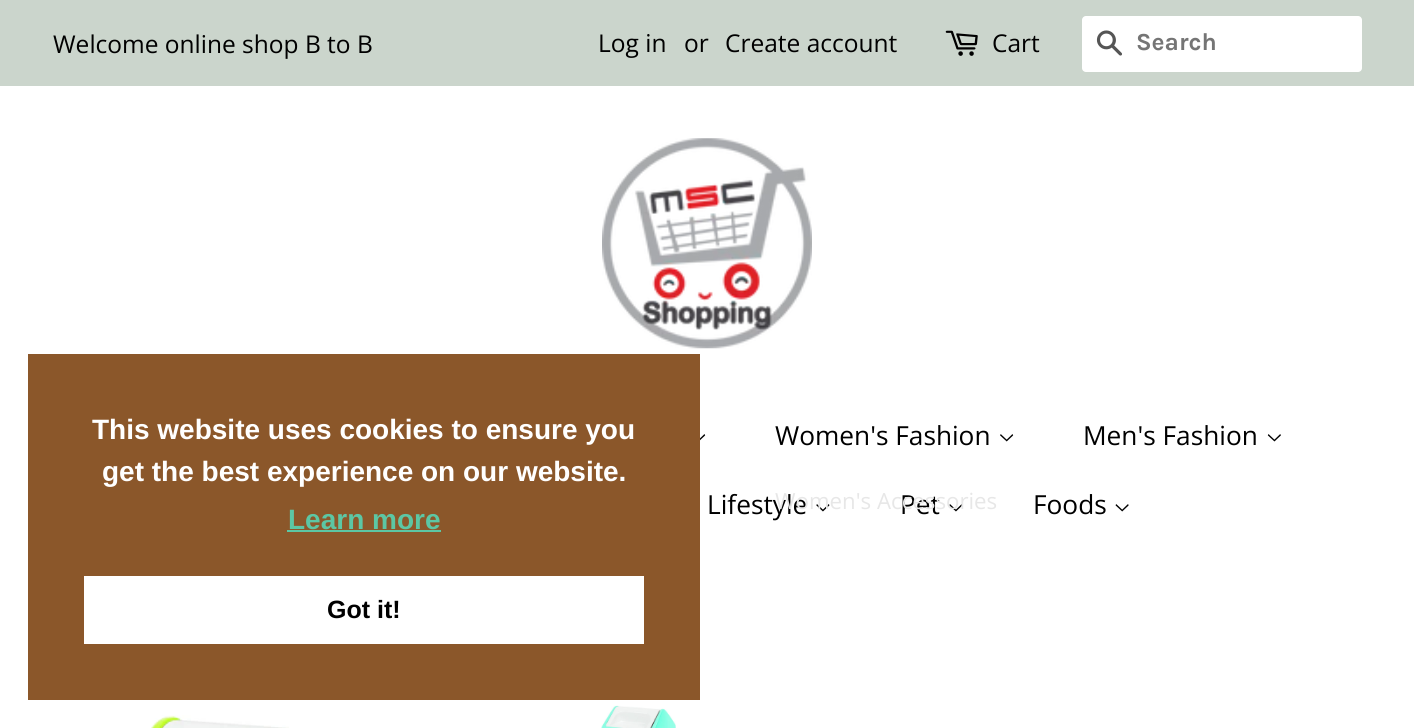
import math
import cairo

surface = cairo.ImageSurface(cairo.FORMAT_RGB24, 1414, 728)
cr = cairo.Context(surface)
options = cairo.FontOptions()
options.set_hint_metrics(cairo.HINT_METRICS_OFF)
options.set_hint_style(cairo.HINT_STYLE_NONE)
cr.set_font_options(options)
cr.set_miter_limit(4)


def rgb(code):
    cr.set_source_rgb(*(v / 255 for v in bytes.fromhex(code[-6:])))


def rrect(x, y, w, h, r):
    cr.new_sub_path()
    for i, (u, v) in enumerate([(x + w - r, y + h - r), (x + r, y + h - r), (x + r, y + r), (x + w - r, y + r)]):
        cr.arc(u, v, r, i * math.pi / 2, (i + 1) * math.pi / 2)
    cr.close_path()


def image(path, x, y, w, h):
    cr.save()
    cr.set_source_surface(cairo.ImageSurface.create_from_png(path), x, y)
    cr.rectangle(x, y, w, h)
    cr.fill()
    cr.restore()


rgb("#ffffff")
cr.paint()
rgb("#cbd5cc")
cr.rectangle(0, 0, 1414, 86)
cr.fill()
image("img/1.png", 945, 30, 33, 26)
rgb("#ffffff")
rrect(1082, 16, 280, 56, 4)
cr.fill()
image("img/2.png", 1096, 30, 26, 26)
image("img/3.png", 602, 138, 210, 211)
image("img/4.png", 700, 434, 6, 7)
image("img/5.png", 1000, 434, 14, 8)
image("img/6.png", 1267, 434, 14, 8)
image("img/7.png", 816, 504, 14, 8)
image("img/7.png", 949, 504, 14, 8)
image("img/8.png", 1115, 504, 14, 8)
for x, y, w, h, color in [
    (28, 354, 672, 346, "#8b572a"),
    (287, 530, 154, 2, "#5cc7a4"),
    (84, 576, 560, 68, "#ffffff"),
]:
    rgb(color)
    cr.rectangle(x, y, w, h)
    cr.fill()
image("img/9.png", 151, 715, 138, 13)
image("img/10.png", 601, 705, 75, 23)
cr.select_font_face("Open Sans")
cr.set_font_size(24.5)
rgb("#000000")
for x, y, s in [
    (53, 53, "Welcome online shop B to B"),
    (598, 52, "Log in"),
    (684, 52, "or"),
    (725, 52, "Create account"),
    (992, 52, "Cart"),
]:
    cr.move_to(x, y)
    cr.show_text(s)
cr.select_font_face("Karla", cairo.FONT_SLANT_NORMAL, cairo.FONT_WEIGHT_BOLD)
rgb("#757575")
cr.move_to(1136, 50)
cr.show_text("Search")
cr.select_font_face("Open Sans")
cr.set_font_size(26.25)
rgb("#000000")
for x, y, s in [
    (775, 445, "Women's Fashion"),
    (1083, 445, "Men's Fashion"),
    (707, 514, "Lifestyle"),
    (900, 514, "Pet"),
]:
    cr.move_to(x, y)
    cr.show_text(s)
cr.set_font_size(22.25)
rgb("#e7e7e7")
cr.move_to(775, 509)
cr.show_text("Women's Accessories")
cr.set_font_size(26.25)
rgb("#000000")
cr.move_to(1033, 514)
cr.show_text("Foods")
cr.select_font_face("Liberation Sans", cairo.FONT_SLANT_NORMAL, cairo.FONT_WEIGHT_BOLD)
cr.set_font_size(28)
rgb("#ffffff")
cr.move_to(92, 439)
cr.show_text("This website uses cookies to ensure you")
cr.move_to(102, 481)
cr.show_text("get the best experience on our website.")
rgb("#5cc7a4")
cr.move_to(288, 529)
cr.show_text("Learn more")
cr.set_font_size(25)
rgb("#000000")
cr.move_to(327, 618)
cr.show_text("Got it!")
surface.write_to_png("page.png")
